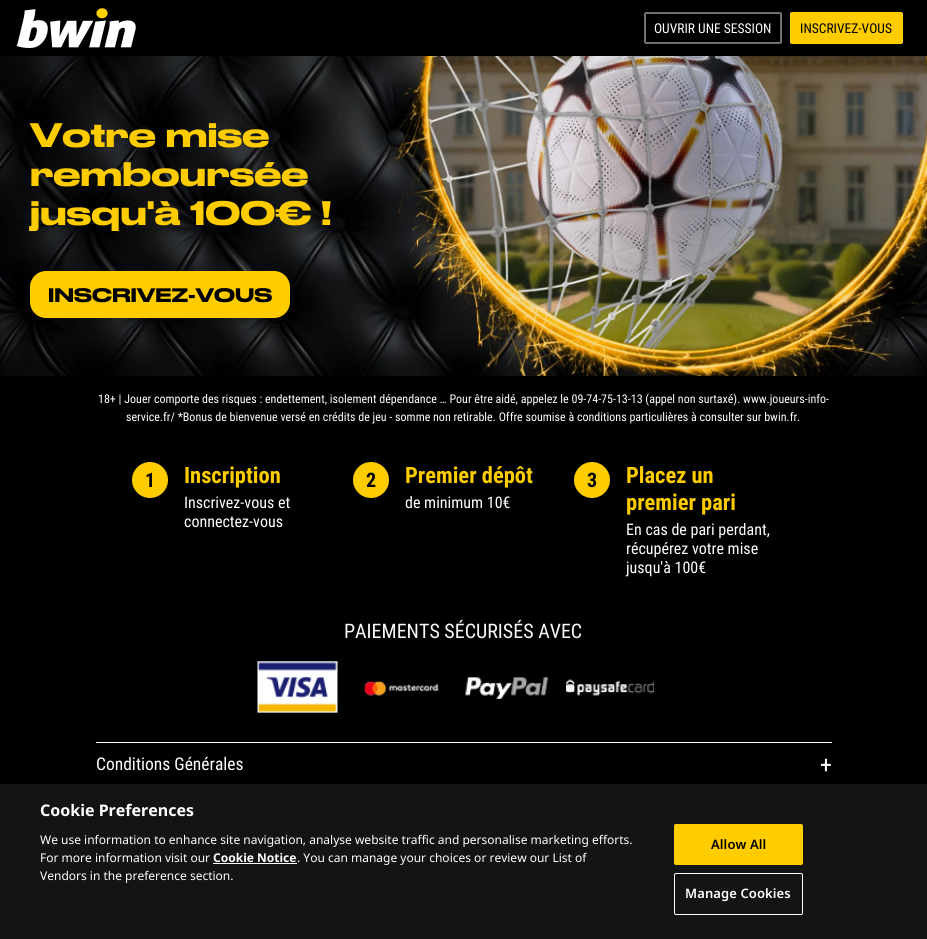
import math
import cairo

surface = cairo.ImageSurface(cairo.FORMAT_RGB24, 927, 939)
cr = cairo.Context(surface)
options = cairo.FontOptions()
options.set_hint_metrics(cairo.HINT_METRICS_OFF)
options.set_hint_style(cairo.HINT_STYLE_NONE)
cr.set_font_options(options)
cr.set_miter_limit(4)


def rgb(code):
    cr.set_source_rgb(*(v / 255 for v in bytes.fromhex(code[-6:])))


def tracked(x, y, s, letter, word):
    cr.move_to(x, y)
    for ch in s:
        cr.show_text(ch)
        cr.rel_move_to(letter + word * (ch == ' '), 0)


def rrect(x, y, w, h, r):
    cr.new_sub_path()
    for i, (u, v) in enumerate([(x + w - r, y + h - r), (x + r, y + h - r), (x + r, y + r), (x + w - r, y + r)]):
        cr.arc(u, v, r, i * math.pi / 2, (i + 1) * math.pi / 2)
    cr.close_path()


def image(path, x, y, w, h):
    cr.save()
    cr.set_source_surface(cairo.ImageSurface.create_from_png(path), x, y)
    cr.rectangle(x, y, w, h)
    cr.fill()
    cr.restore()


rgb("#000000")
cr.paint()
image("img/1.png", 16, 8, 120, 40)
rrect(645, 13, 136, 30, 1)
rgb("#707070")
cr.stroke()
rgb("#ffcc00")
rrect(791, 13, 111, 30, 1)
cr.fill_preserve()
cr.stroke()
image("img/2.png", 0, 56, 927, 320)
rrect(31, 272, 258, 45, 15)
cr.fill_preserve()
cr.stroke()
cr.arc(150, 480, 17, 0, 2 * math.pi)
cr.fill_preserve()
cr.stroke()
cr.arc(371, 480, 17, 0, 2 * math.pi)
cr.fill_preserve()
cr.stroke()
cr.arc(592, 480, 17, 0, 2 * math.pi)
cr.fill_preserve()
cr.stroke()
image("img/3.png", 257, 661, 81, 52)
image("img/4.png", 364, 681, 76, 15)
image("img/5.png", 465, 677, 83, 22)
image("img/6.png", 566, 679, 88, 17)
for x, y, w, h, color in [
    (96, 742, 736, 1, "#ffffff"),
    (0, 784, 927, 155, "#141414"),
    (213, 863, 84, 1, "#ffffff"),
]:
    rgb(color)
    cr.rectangle(x, y, w, h)
    cr.fill()
rgb("#ffcc00")
rrect(674.5, 824.5, 128, 40, 1.5)
cr.fill_preserve()
cr.set_line_width(1)
cr.stroke()
rrect(674.5, 873.5, 128, 41, 1.5)
rgb("#ffffff")
cr.stroke()
cr.select_font_face("Roboto Condensed")
cr.set_font_size(13.5)
cr.move_to(654, 33)
cr.show_text("OUVRIR UNE SESSION")
rgb("#000000")
cr.move_to(800, 33)
cr.show_text("INSCRIVEZ-VOUS")
cr.select_font_face("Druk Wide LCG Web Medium")
cr.set_font_size(32)
rgb("#ffcc00")
for x, y, s in [
    (30, 147, "Votre mise"),
    (30, 186, "remboursée"),
    (30, 225, "jusqu'à 100€ !"),
]:
    cr.move_to(x, y)
    cr.show_text(s)
cr.set_font_size(18.4)
rgb("#000000")
cr.move_to(48, 302)
cr.show_text("INSCRIVEZ-VOUS")
cr.select_font_face("Roboto Condensed")
cr.set_font_size(12)
rgb("#ffffff")
cr.move_to(98, 403)
cr.show_text("18+ | Jouer comporte des risques : endettement, isolement dépendance … Pour être aidé, appelez le 09-74-75-13-13 (appel non surtaxé). www.joueurs-info-")
cr.move_to(126, 421)
cr.show_text("service.fr/ *Bonus de bienvenue versé en crédits de jeu - somme non retirable. Offre soumise à conditions particulières à consulter sur bwin.fr.")
cr.select_font_face("Roboto Condensed", cairo.FONT_SLANT_NORMAL, cairo.FONT_WEIGHT_BOLD)
cr.set_font_size(20)
rgb("#000000")
cr.move_to(145, 487)
cr.show_text("1")
cr.set_font_size(22.5)
rgb("#ffcc00")
cr.move_to(184, 483)
cr.show_text("Inscription")
cr.select_font_face("Roboto Condensed")
cr.set_font_size(16)
rgb("#ffffff")
cr.move_to(184, 508)
cr.show_text("Inscrivez-vous et")
cr.move_to(184, 527)
cr.show_text("connectez-vous")
cr.select_font_face("Roboto Condensed", cairo.FONT_SLANT_NORMAL, cairo.FONT_WEIGHT_BOLD)
cr.set_font_size(20)
rgb("#000000")
cr.move_to(366, 487)
cr.show_text("2")
cr.set_font_size(22.5)
rgb("#ffcc00")
cr.move_to(405, 483)
cr.show_text("Premier dépôt")
cr.select_font_face("Roboto Condensed")
cr.set_font_size(16)
rgb("#ffffff")
cr.move_to(405, 508)
cr.show_text("de minimum 10€")
cr.select_font_face("Roboto Condensed", cairo.FONT_SLANT_NORMAL, cairo.FONT_WEIGHT_BOLD)
cr.set_font_size(20)
rgb("#000000")
cr.move_to(587, 487)
cr.show_text("3")
cr.set_font_size(22.5)
rgb("#ffcc00")
cr.move_to(626, 483)
cr.show_text("Placez un")
cr.move_to(626, 510)
cr.show_text("premier pari")
cr.select_font_face("Roboto Condensed")
cr.set_font_size(16)
rgb("#ffffff")
for x, y, s in [
    (626, 535, "En cas de pari perdant,"),
    (626, 554, "récupérez votre mise"),
    (626, 573, "jusqu'à 100€"),
]:
    cr.move_to(x, y)
    cr.show_text(s)
cr.set_font_size(20)
rgb("#f8f9fa")
cr.move_to(344, 638)
cr.show_text("PAIEMENTS SÉCURISÉS AVEC")
cr.set_font_size(17.5)
rgb("#ffffff")
cr.move_to(96, 770)
cr.show_text("Conditions Générales")
cr.set_font_size(24)
cr.move_to(820, 773)
cr.show_text("+")
cr.select_font_face("Noto Sans", cairo.FONT_SLANT_NORMAL, cairo.FONT_WEIGHT_BOLD)
cr.set_font_size(16)
cr.move_to(40, 816)
cr.show_text("Cookie Preferences")
cr.select_font_face("Noto Sans")
cr.set_font_size(12)
cr.move_to(40, 844)
cr.show_text("We use information to enhance site navigation, analyse website traffic and personalise marketing efforts.")
cr.move_to(40, 862)
cr.show_text("For more information visit our")
cr.select_font_face("Noto Sans", cairo.FONT_SLANT_NORMAL, cairo.FONT_WEIGHT_BOLD)
cr.move_to(213, 862)
cr.show_text("Cookie Notice")
cr.select_font_face("Noto Sans")
cr.move_to(297, 862)
cr.show_text(". You can manage your choices or review our List of")
cr.move_to(40, 880)
cr.show_text("Vendors in the preference section.")
cr.select_font_face("Noto Sans SemiBold")
cr.set_font_size(13)
rgb("#000000")
tracked(711, 849, "Allow All", 0.1, 0)
rgb("#ffffff")
tracked(685, 898, "Manage Cookies", 0.1, 0)
surface.write_to_png("page.png")
